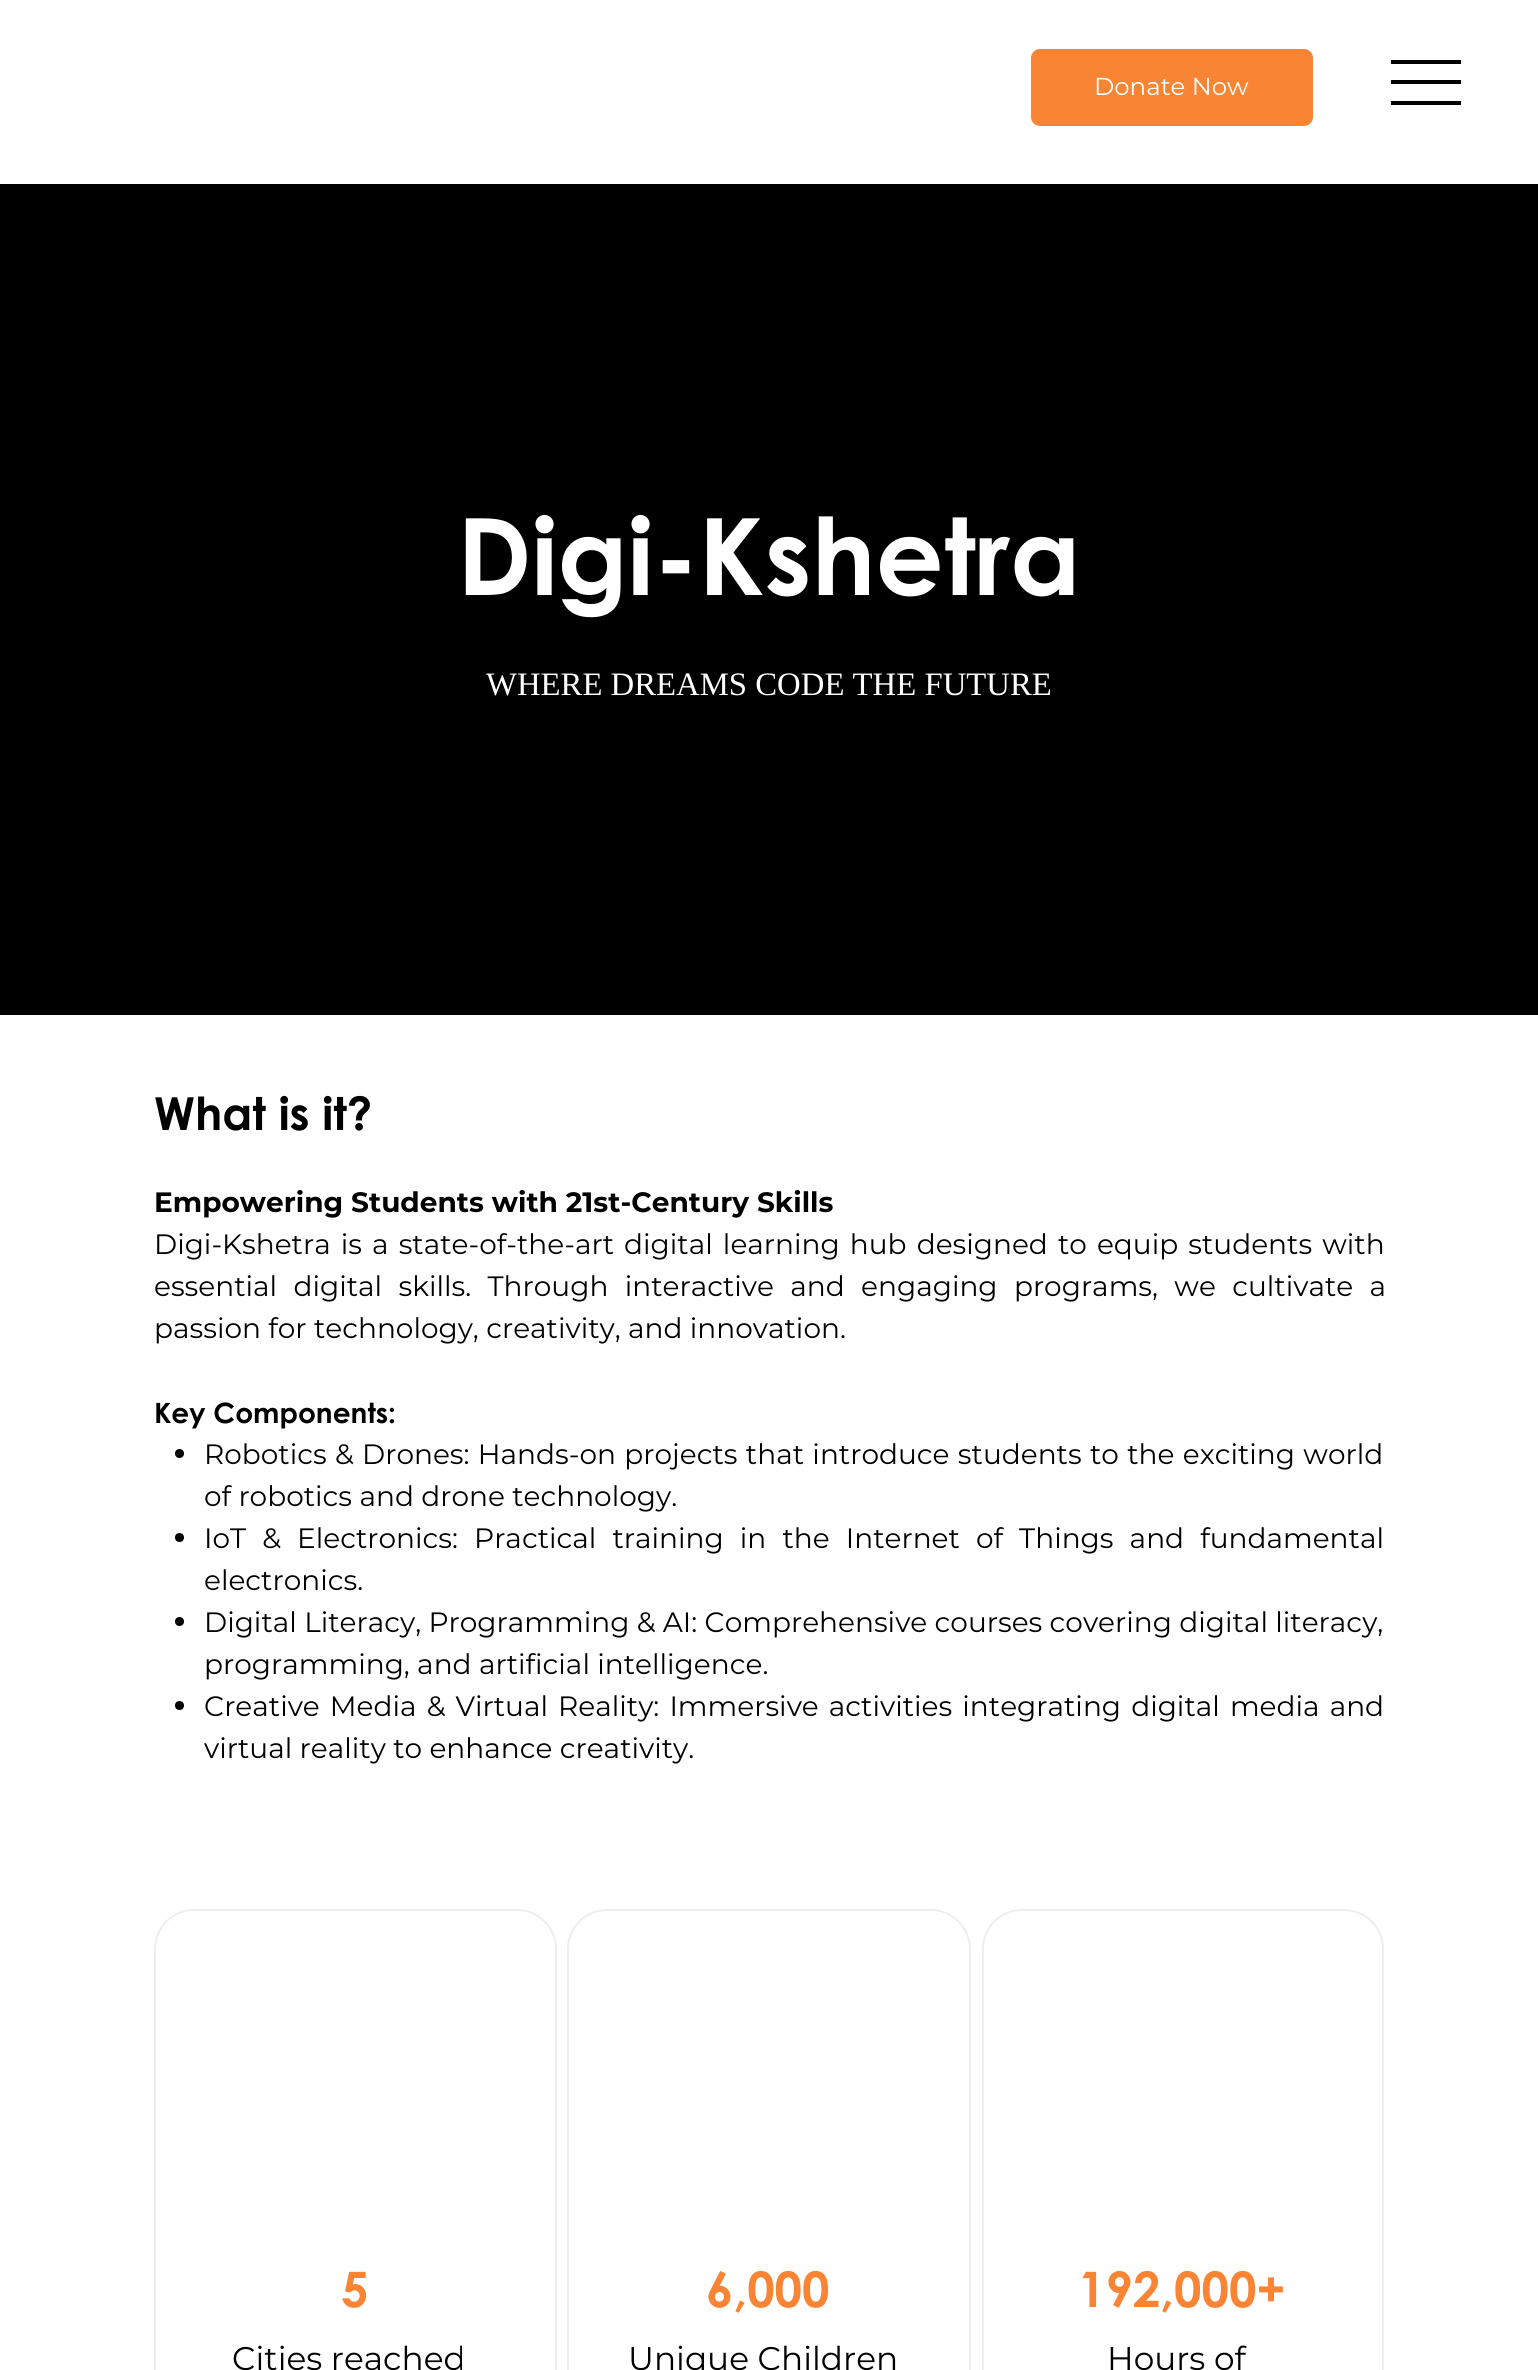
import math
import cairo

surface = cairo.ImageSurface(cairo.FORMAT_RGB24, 1538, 2370)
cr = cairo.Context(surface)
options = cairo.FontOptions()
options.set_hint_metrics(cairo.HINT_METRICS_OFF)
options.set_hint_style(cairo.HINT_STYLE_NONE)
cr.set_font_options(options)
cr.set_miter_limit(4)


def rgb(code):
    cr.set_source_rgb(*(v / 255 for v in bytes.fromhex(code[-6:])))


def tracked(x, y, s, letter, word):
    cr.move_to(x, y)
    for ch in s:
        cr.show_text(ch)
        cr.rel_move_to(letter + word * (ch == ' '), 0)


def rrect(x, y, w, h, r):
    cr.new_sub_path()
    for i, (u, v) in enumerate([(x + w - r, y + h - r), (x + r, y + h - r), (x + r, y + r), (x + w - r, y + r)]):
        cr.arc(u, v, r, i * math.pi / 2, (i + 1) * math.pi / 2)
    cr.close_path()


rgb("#ffffff")
cr.paint()
rgb("#f88434")
rrect(1031, 49, 282, 77, 9)
cr.fill()
for x, y, w, h, color in [
    (1391, 60, 70, 4, "#000000"),
    (1391, 80, 70, 4, "#000000"),
    (1391, 101, 70, 4, "#000000"),
    (0, 184, 1538, 831, "#000000"),
]:
    rgb(color)
    cr.rectangle(x, y, w, h)
    cr.fill()
cr.arc(179.5, 1453.5, 4.5, 0, 2 * math.pi)
cr.fill()
cr.arc(179.5, 1537.5, 4.5, 0, 2 * math.pi)
cr.fill()
cr.arc(179.5, 1621.5, 4.5, 0, 2 * math.pi)
cr.fill()
cr.arc(179.5, 1705.5, 4.5, 0, 2 * math.pi)
cr.fill()
rrect(155, 1910, 401, 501, 39)
rgb("#eeeeee")
cr.stroke()
rrect(568, 1910, 402, 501, 39)
cr.stroke()
rrect(983, 1910, 400, 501, 39)
cr.stroke()
cr.select_font_face("Montserrat")
cr.set_font_size(24.5)
rgb("#ffffff")
cr.move_to(1094, 95)
cr.show_text("Donate Now")
cr.select_font_face("Century Gothic", cairo.FONT_SLANT_NORMAL, cairo.FONT_WEIGHT_BOLD)
cr.set_font_size(106.75)
cr.move_to(457, 595)
cr.show_text("Digi-Kshetra")
cr.select_font_face("Liberation Serif")
cr.set_font_size(32.75)
cr.move_to(486, 695)
cr.show_text("WHERE DREAMS CODE THE FUTURE")
cr.select_font_face("Century Gothic", cairo.FONT_SLANT_NORMAL, cairo.FONT_WEIGHT_BOLD)
cr.set_font_size(45.5)
rgb("#000000")
cr.move_to(154, 1130)
cr.show_text("What is it?")
cr.select_font_face("Montserrat", cairo.FONT_SLANT_NORMAL, cairo.FONT_WEIGHT_BOLD)
cr.set_font_size(28)
cr.move_to(154, 1212)
cr.show_text("Empowering Students with 21st-Century Skills")
cr.select_font_face("Montserrat")
tracked(154, 1254, "Digi-Kshetra is a state-of-the-art digital learning hub designed to equip students with", 0, 2.75)
tracked(154, 1296, "essential digital skills. Through interactive and engaging programs, we cultivate a", 0, 9)
cr.move_to(154, 1338)
cr.show_text("passion for technology, creativity, and innovation.")
cr.select_font_face("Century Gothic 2", cairo.FONT_SLANT_NORMAL, cairo.FONT_WEIGHT_BOLD)
cr.move_to(154, 1423)
cr.show_text("Key Components:")
cr.select_font_face("Montserrat")
tracked(204, 1464, "Robotics & Drones: Hands-on projects that introduce students to the exciting world", 0, 1)
cr.move_to(204, 1506)
cr.show_text("of robotics and drone technology.")
tracked(204, 1548, "IoT & Electronics: Practical training in the Internet of Things and fundamental", 0, 8.75)
for x, y, s in [
    (204, 1590, "electronics."),
    (204, 1632, "Digital Literacy, Programming & AI: Comprehensive courses covering digital literacy,"),
    (204, 1674, "programming, and artificial intelligence."),
]:
    cr.move_to(x, y)
    cr.show_text(s)
tracked(204, 1716, "Creative Media & Virtual Reality: Immersive activities integrating digital media and", 0, 2.75)
cr.move_to(204, 1758)
cr.show_text("virtual reality to enhance creativity.")
cr.select_font_face("Century Gothic", cairo.FONT_SLANT_NORMAL, cairo.FONT_WEIGHT_BOLD)
cr.set_font_size(49)
rgb("#f88434")
cr.move_to(341, 2307)
cr.show_text("5")
cr.select_font_face("Montserrat")
cr.set_font_size(32.75)
rgb("#000000")
cr.move_to(232, 2370)
cr.show_text("Cities reached")
cr.select_font_face("Century Gothic", cairo.FONT_SLANT_NORMAL, cairo.FONT_WEIGHT_BOLD)
cr.set_font_size(49)
rgb("#f88434")
cr.move_to(706, 2307)
cr.show_text("6,000")
cr.select_font_face("Montserrat")
cr.set_font_size(32.75)
rgb("#000000")
cr.move_to(628, 2370)
cr.show_text("Unique Children")
cr.select_font_face("Century Gothic", cairo.FONT_SLANT_NORMAL, cairo.FONT_WEIGHT_BOLD)
cr.set_font_size(49)
rgb("#f88434")
cr.move_to(1078, 2307)
cr.show_text("192,000+")
cr.select_font_face("Montserrat")
cr.set_font_size(32.75)
rgb("#000000")
cr.move_to(1107, 2370)
cr.show_text("Hours of")
surface.write_to_png("page.png")
